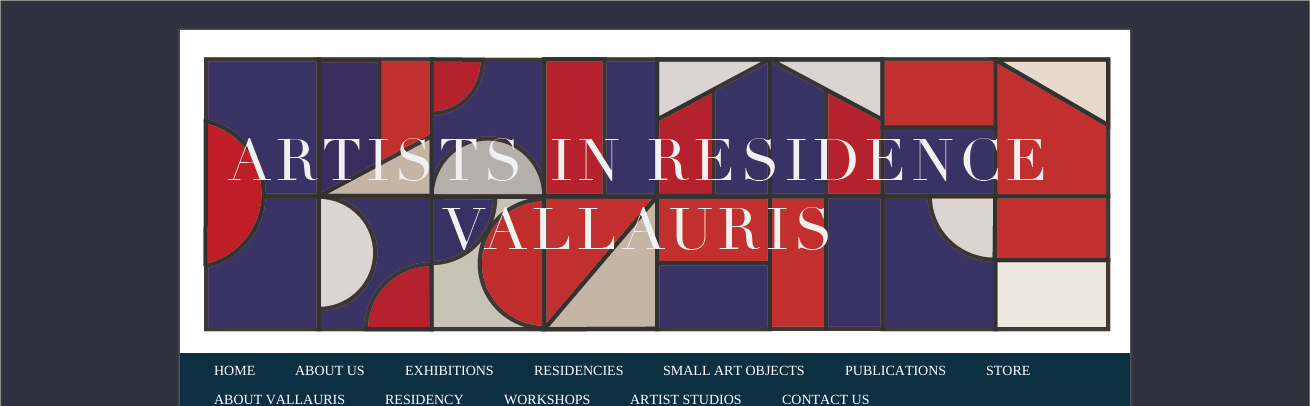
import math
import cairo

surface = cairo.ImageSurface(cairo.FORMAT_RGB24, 1310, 406)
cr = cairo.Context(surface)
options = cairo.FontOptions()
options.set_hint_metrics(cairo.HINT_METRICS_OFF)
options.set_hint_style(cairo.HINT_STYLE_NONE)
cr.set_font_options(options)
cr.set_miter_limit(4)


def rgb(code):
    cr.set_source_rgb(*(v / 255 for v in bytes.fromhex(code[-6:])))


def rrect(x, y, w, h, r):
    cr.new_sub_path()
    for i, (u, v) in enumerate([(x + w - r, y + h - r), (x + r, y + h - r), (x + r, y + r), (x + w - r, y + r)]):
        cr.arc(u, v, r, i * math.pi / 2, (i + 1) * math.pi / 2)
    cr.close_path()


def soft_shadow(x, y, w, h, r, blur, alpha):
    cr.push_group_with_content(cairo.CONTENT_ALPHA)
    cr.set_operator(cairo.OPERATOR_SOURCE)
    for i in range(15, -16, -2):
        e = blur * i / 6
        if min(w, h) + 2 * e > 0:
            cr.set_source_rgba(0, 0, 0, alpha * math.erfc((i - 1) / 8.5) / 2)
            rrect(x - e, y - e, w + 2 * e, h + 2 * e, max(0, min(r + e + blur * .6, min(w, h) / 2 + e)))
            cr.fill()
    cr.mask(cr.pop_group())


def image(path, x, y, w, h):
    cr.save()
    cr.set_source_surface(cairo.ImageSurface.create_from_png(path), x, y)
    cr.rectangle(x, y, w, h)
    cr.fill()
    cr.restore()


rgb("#ffffff")
cr.paint()
image("img/1.png", 0, 0, 1310, 406)
rgb("#818085")
soft_shadow(180, 30, 950, 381, 0, 1.5, 1)
rgb("#ffffff")
cr.rectangle(180, 30, 950, 323)
cr.fill()
image("img/2.png", 203, 57, 908, 275)
rgb("#0d2f42")
cr.rectangle(180, 353, 950, 53)
cr.fill()
cr.select_font_face("Liberation Serif")
cr.set_font_size(14)
rgb("#ffffff")
for x, y, s in [
    (214, 375, "HOME"),
    (295, 375, "ABOUT US"),
    (405, 375, "EXHIBITIONS"),
    (534, 375, "RESIDENCIES"),
    (663, 375, "SMALL ART OBJECTS"),
    (845, 375, "PUBLICATIONS"),
    (986, 375, "STORE"),
    (214, 404, "ABOUT VALLAURIS"),
    (385, 404, "RESIDENCY"),
    (504, 404, "WORKSHOPS"),
    (630, 404, "ARTIST STUDIOS"),
    (782, 404, "CONTACT US"),
]:
    cr.move_to(x, y)
    cr.show_text(s)
surface.write_to_png("page.png")
